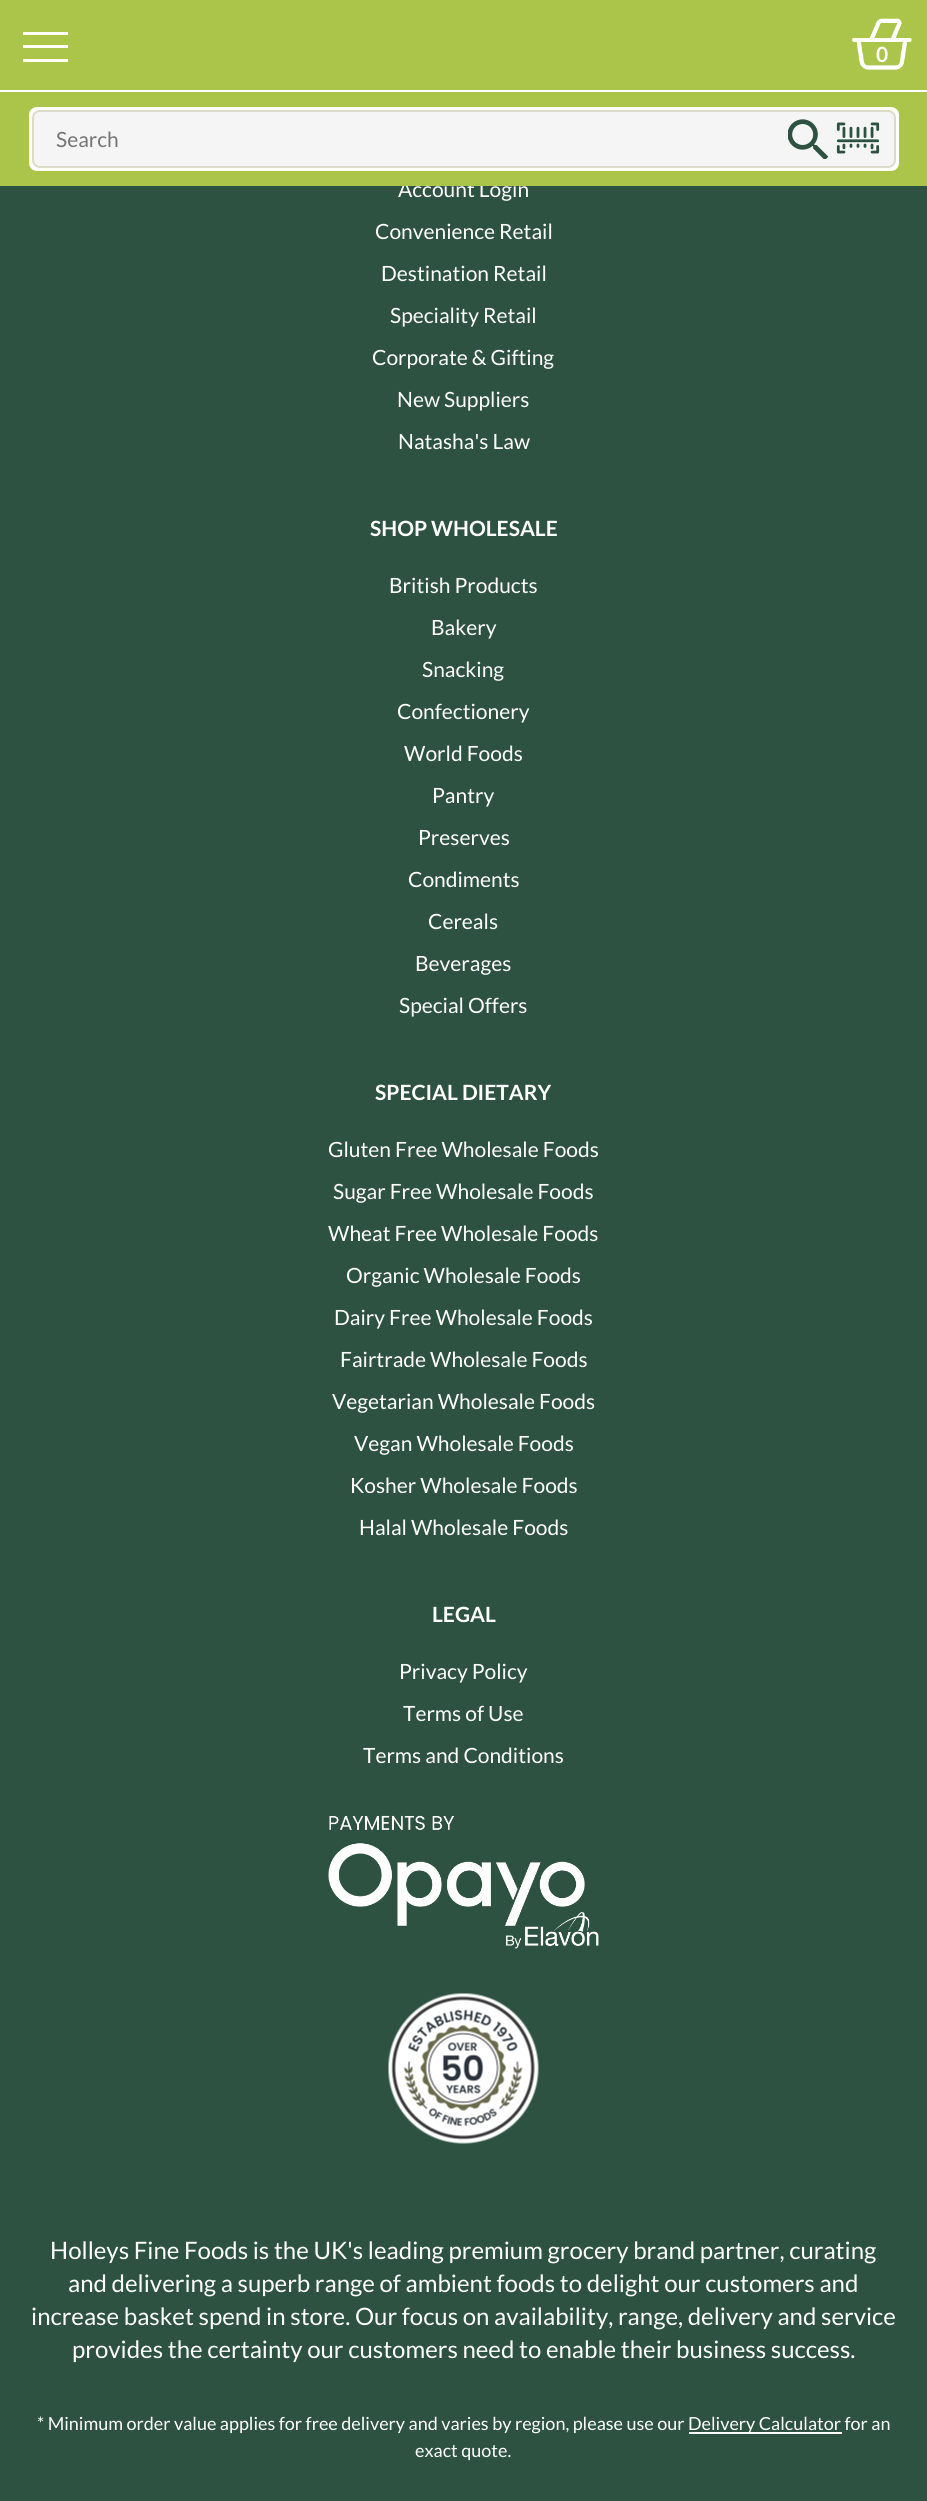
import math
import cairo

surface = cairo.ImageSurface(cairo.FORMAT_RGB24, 927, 2501)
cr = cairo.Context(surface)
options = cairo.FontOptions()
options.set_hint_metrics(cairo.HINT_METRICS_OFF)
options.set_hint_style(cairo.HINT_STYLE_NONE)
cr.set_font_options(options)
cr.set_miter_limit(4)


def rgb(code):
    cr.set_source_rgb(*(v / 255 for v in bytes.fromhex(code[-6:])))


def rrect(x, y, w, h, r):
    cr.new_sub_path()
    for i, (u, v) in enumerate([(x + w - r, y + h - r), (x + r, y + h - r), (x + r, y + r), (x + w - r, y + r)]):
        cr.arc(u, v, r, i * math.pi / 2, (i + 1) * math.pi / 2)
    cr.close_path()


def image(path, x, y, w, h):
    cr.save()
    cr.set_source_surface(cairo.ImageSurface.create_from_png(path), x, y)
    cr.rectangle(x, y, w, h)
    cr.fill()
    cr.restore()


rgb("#2e5241")
cr.paint()
for x, y, w, h, color in [
    (0, 0, 927, 90, "#abc44a"),
    (23, 45, 45, 3, "#ffffff"),
    (23, 32, 45, 3, "#ffffff"),
    (23, 59, 45, 3, "#ffffff"),
]:
    rgb(color)
    cr.rectangle(x, y, w, h)
    cr.fill()
image("img/1.png", 852, 18, 60, 52)
cr.rectangle(0, 90, 927, 2)
cr.fill()
image("img/4.png", 328, 1815, 271, 134)
image("img/5.png", 388, 1993, 151, 151)
cr.rectangle(689, 2432, 153, 2)
cr.fill()
cr.select_font_face("Lato", cairo.FONT_SLANT_NORMAL, cairo.FONT_WEIGHT_BOLD)
cr.set_font_size(21)
cr.move_to(876, 62)
cr.show_text("0")
cr.select_font_face("Lato")
cr.move_to(398, 197)
cr.show_text("Account Login")
rgb("#abc44a")
cr.rectangle(0, 92, 927, 94)
cr.fill()
rgb("#ffffff")
rrect(29, 107, 870, 64, 8)
cr.fill()
rgb("#f5f5f5")
rrect(33, 111, 862, 56, 7)
cr.fill_preserve()
rgb("#dbdbc8")
cr.stroke()
image("img/3.png", 836, 122, 44, 32)
image("img/2.png", 788, 119, 41, 40)
rgb("#757575")
cr.move_to(56, 147)
cr.show_text("Search")
rgb("#ffffff")
for x, y, s in [
    (375, 239, "Convenience Retail"),
    (381, 281, "Destination Retail"),
    (390, 323, "Speciality Retail"),
    (372, 365, "Corporate & Gifting"),
    (397, 407, "New Suppliers"),
    (398, 449, "Natasha's Law"),
]:
    cr.move_to(x, y)
    cr.show_text(s)
cr.select_font_face("Lato", cairo.FONT_SLANT_NORMAL, cairo.FONT_WEIGHT_BOLD)
cr.move_to(370, 536)
cr.show_text("SHOP WHOLESALE")
cr.select_font_face("Lato")
for x, y, s in [
    (389, 593, "British Products"),
    (431, 635, "Bakery"),
    (422, 677, "Snacking"),
    (397, 719, "Confectionery"),
    (404, 761, "World Foods"),
    (432, 803, "Pantry"),
    (418, 845, "Preserves"),
    (408, 887, "Condiments"),
    (428, 929, "Cereals"),
    (415, 971, "Beverages"),
    (399, 1013, "Special Offers"),
]:
    cr.move_to(x, y)
    cr.show_text(s)
cr.select_font_face("Lato", cairo.FONT_SLANT_NORMAL, cairo.FONT_WEIGHT_BOLD)
cr.move_to(375, 1100)
cr.show_text("SPECIAL DIETARY")
cr.select_font_face("Lato")
for x, y, s in [
    (328, 1157, "Gluten Free Wholesale Foods"),
    (333, 1199, "Sugar Free Wholesale Foods"),
    (328, 1241, "Wheat Free Wholesale Foods"),
    (346, 1283, "Organic Wholesale Foods"),
    (334, 1325, "Dairy Free Wholesale Foods"),
    (340, 1367, "Fairtrade Wholesale Foods"),
    (332, 1409, "Vegetarian Wholesale Foods"),
    (354, 1451, "Vegan Wholesale Foods"),
    (350, 1493, "Kosher Wholesale Foods"),
    (359, 1535, "Halal Wholesale Foods"),
]:
    cr.move_to(x, y)
    cr.show_text(s)
cr.select_font_face("Lato", cairo.FONT_SLANT_NORMAL, cairo.FONT_WEIGHT_BOLD)
cr.move_to(432, 1622)
cr.show_text("LEGAL")
cr.select_font_face("Lato")
for x, y, s in [
    (399, 1679, "Privacy Policy"),
    (403, 1721, "Terms of Use"),
    (363, 1763, "Terms and Conditions"),
]:
    cr.move_to(x, y)
    cr.show_text(s)
cr.set_font_size(24)
for x, y, s in [
    (50, 2259, "Holleys Fine Foods is the UK's leading premium grocery brand partner, curating"),
    (68, 2292, "and delivering a superb range of ambient foods to delight our customers and"),
    (31, 2325, "increase basket spend in store. Our focus on availability, range, delivery and service"),
    (72, 2358, "provides the certainty our customers need to enable their business success."),
]:
    cr.move_to(x, y)
    cr.show_text(s)
cr.set_font_size(18)
for x, y, s in [
    (37, 2430, "* Minimum order value applies for free delivery and varies by region, please use our"),
    (688, 2430, "Delivery Calculator for an"),
    (415, 2457, "exact quote."),
]:
    cr.move_to(x, y)
    cr.show_text(s)
surface.write_to_png("page.png")
